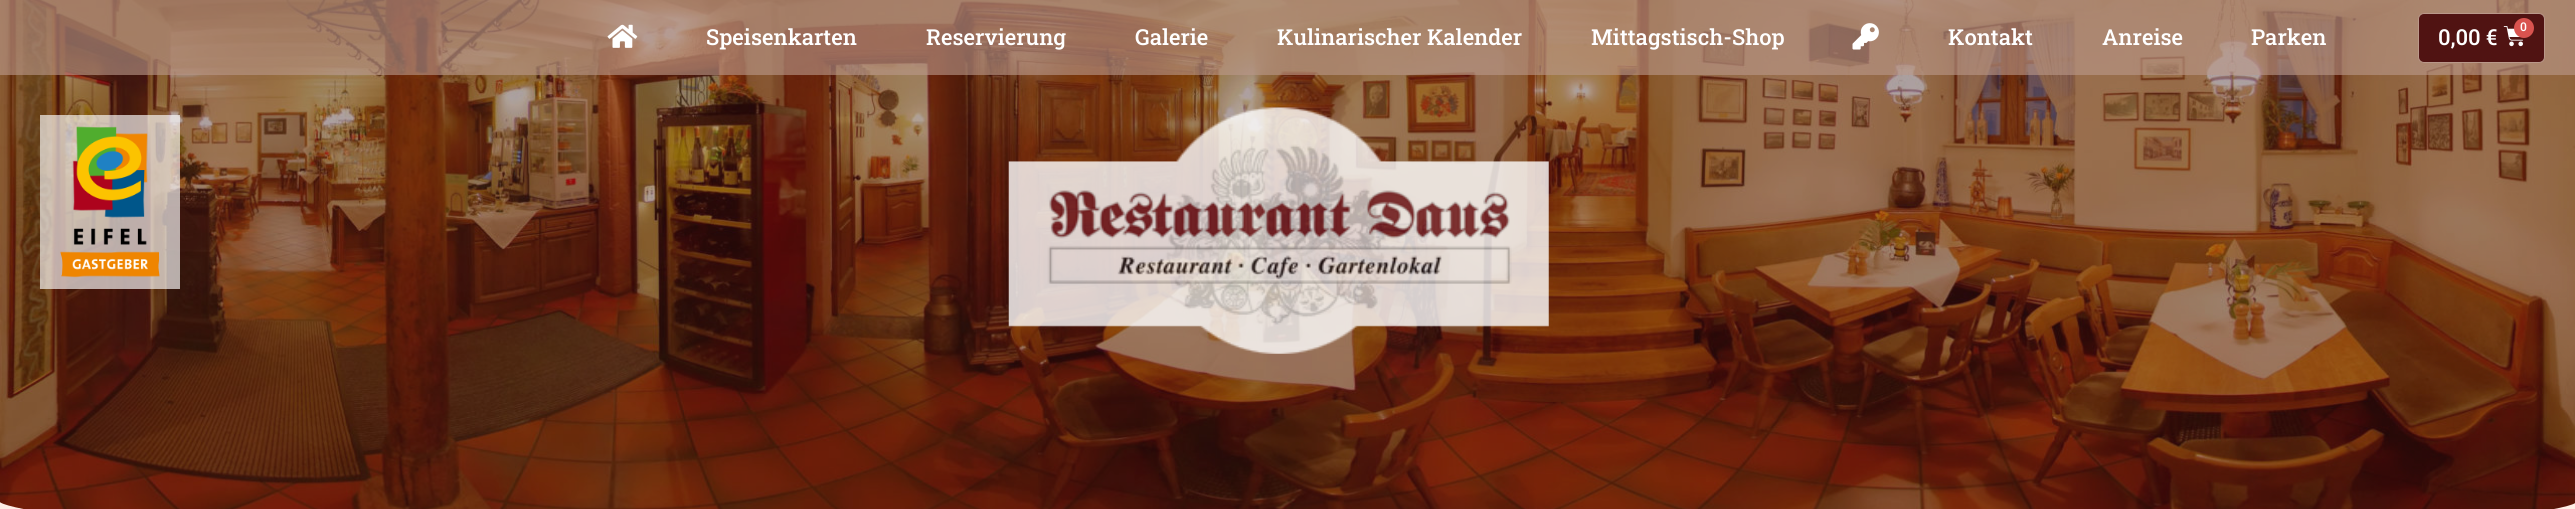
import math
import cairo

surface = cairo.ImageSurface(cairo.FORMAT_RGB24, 2575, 509)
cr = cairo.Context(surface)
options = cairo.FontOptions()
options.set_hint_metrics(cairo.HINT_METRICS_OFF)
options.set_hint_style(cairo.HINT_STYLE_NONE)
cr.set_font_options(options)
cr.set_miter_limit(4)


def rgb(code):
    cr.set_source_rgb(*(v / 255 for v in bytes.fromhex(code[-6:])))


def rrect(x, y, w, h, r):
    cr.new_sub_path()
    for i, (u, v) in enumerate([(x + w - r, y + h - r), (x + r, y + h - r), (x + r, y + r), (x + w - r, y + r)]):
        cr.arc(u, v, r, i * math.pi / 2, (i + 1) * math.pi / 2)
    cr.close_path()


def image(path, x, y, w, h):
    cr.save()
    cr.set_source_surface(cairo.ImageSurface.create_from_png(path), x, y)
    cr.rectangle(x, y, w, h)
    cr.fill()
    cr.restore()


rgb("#ffffff")
cr.paint()
image("img/1.png", 0, 0, 2575, 509)
cr.set_source_rgba(0.729, 0.596, 0.541, 0.62)
cr.rectangle(0, 0, 2575, 75)
cr.fill()
image("img/2.png", 607, 24, 31, 24)
image("img/3.png", 1852, 23, 27, 27)
rgb("#501312")
rrect(2418.5, 13.5, 126, 49, 5.5)
cr.fill_preserve()
rgb("#ba988a")
cr.set_line_width(1)
cr.stroke()
image("img/4.png", 2503, 26, 20, 21)
rgb("#d9534f")
cr.arc(2524, 28, 10, 0, 2 * math.pi)
cr.fill()
cr.set_source_rgba(1, 1, 1, 0.65)
cr.rectangle(40, 115, 140, 174)
cr.fill()
image("img/5.png", 60, 126, 100, 152)
image("img/6.png", 1008, 107, 541, 247)
rgb("#ffeee6")
cr.new_path()
cr.move_to(1287, 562)
cr.curve_to(326, 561, 1, 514, -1, 501)
cr.line_to(-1, 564)
cr.line_to(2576, 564)
cr.line_to(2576, 502)
cr.curve_to(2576, 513, 2249, 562, 1287, 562)
cr.close_path()
cr.fill()
cr.select_font_face("Roboto Slab Medium")
cr.set_font_size(22)
rgb("#ffffff")
for x, y, s in [
    (706, 45, "Speisenkarten"),
    (926, 45, "Reservierung"),
    (1135, 45, "Galerie"),
    (1277, 45, "Kulinarischer Kalender"),
    (1591, 45, "Mittagstisch-Shop"),
    (1948, 45, "Kontakt"),
    (2102, 45, "Anreise"),
    (2251, 45, "Parken"),
]:
    cr.move_to(x, y)
    cr.show_text(s)
cr.set_font_size(12)
cr.move_to(2520, 31)
cr.show_text("0")
cr.set_font_size(22)
cr.move_to(2438, 45)
cr.show_text("0,00 €")
surface.write_to_png("page.png")
